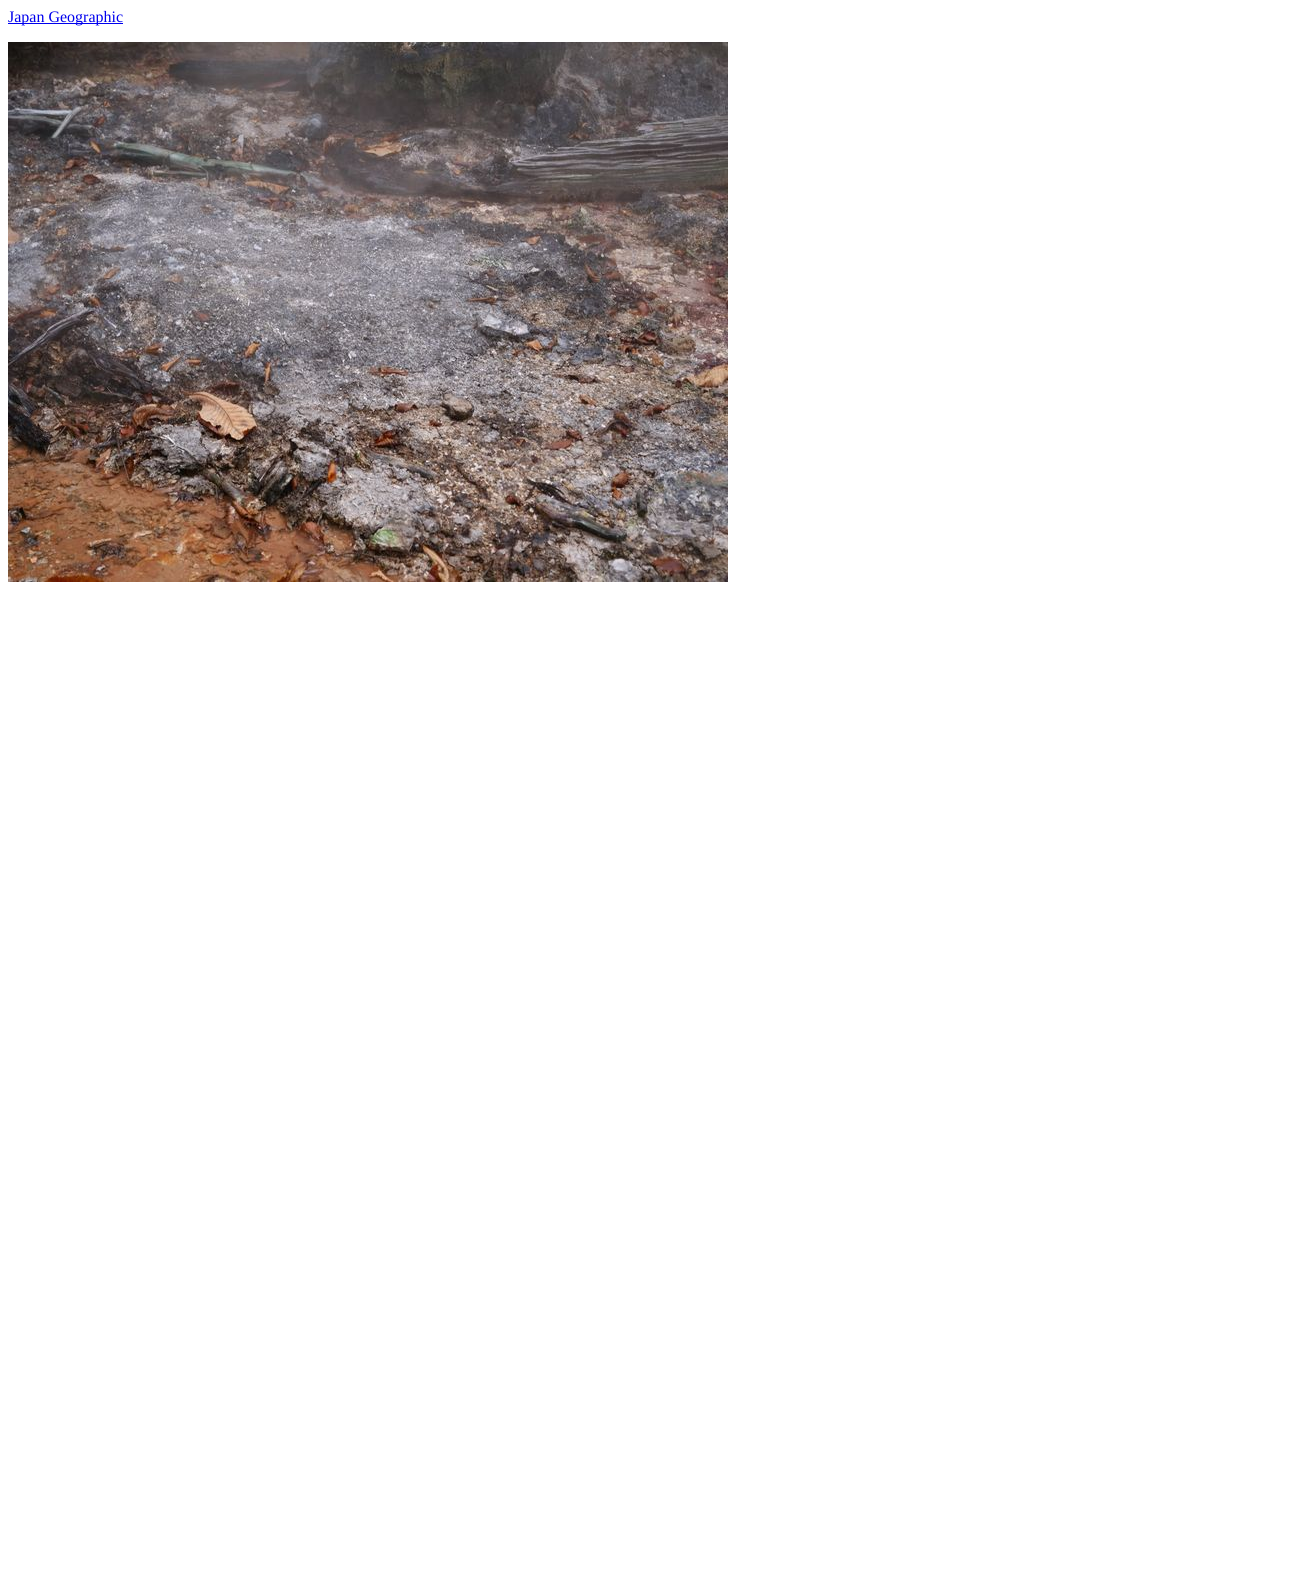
import math
import cairo

surface = cairo.ImageSurface(cairo.FORMAT_RGB24, 1297, 1588)
cr = cairo.Context(surface)
options = cairo.FontOptions()
options.set_hint_metrics(cairo.HINT_METRICS_OFF)
options.set_hint_style(cairo.HINT_STYLE_NONE)
cr.set_font_options(options)
cr.set_miter_limit(4)


def rgb(code):
    cr.set_source_rgb(*(v / 255 for v in bytes.fromhex(code[-6:])))


def image(path, x, y, w, h):
    cr.save()
    cr.set_source_surface(cairo.ImageSurface.create_from_png(path), x, y)
    cr.rectangle(x, y, w, h)
    cr.fill()
    cr.restore()


rgb("#ffffff")
cr.paint()
rgb("#0000ee")
cr.rectangle(8, 23, 115, 1)
cr.fill()
image("img/1.png", 8, 42, 720, 540)
cr.select_font_face("Liberation Serif")
cr.set_font_size(16)
cr.move_to(8, 22)
cr.show_text("Japan Geographic")
surface.write_to_png("page.png")
